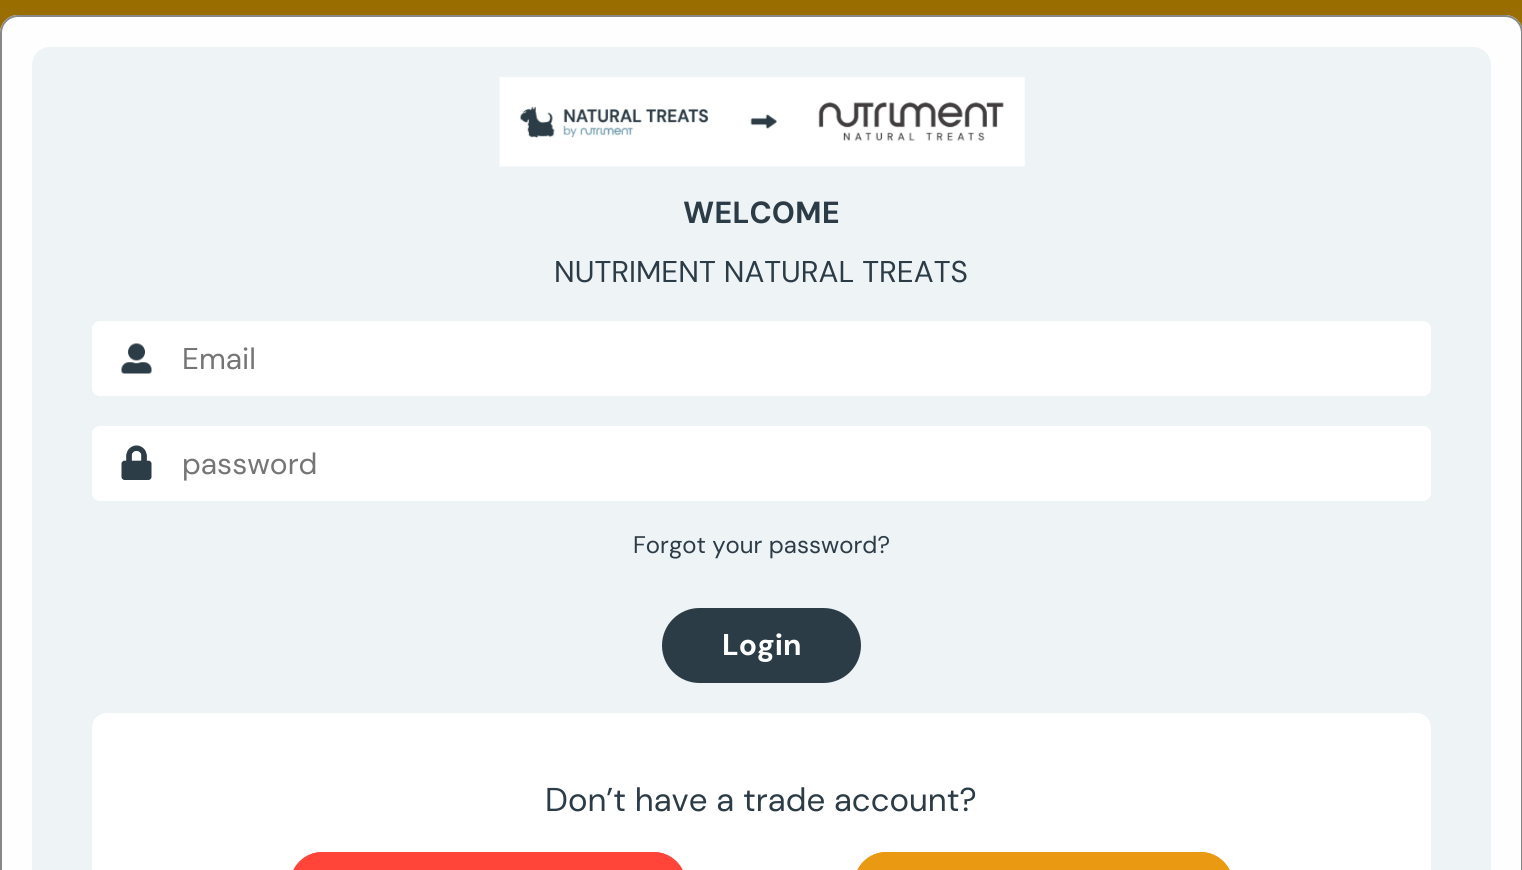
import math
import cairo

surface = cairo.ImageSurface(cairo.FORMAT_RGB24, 1522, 870)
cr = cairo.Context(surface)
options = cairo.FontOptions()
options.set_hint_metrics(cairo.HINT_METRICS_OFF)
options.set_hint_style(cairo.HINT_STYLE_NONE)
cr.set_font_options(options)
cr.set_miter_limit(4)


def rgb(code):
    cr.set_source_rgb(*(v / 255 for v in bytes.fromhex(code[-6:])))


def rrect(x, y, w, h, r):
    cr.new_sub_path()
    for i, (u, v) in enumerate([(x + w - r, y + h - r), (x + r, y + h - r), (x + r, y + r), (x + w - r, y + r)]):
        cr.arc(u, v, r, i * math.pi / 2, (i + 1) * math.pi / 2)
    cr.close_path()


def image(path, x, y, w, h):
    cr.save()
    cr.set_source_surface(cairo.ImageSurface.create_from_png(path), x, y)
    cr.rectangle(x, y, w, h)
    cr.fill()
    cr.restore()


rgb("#996d00")
cr.paint()
rgb("#fefefe")
cr.new_path()
cr.move_to(18, 15)
cr.line_to(1505, 15)
cr.curve_to(1515, 15, 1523, 23, 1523, 33)
cr.line_to(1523, 870)
cr.line_to(0, 870)
cr.line_to(0, 33)
cr.curve_to(0, 23, 8, 15, 18, 15)
cr.close_path()
cr.fill()
rrect(1, 16, 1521, 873, 17)
rgb("#888888")
cr.stroke()
rgb("#eef3f6")
cr.new_path()
cr.move_to(50, 47)
cr.line_to(1473, 47)
cr.curve_to(1483, 47, 1491, 55, 1491, 65)
cr.line_to(1491, 870)
cr.line_to(32, 870)
cr.line_to(32, 65)
cr.curve_to(32, 55, 40, 47, 50, 47)
cr.close_path()
cr.fill()
image("img/1.png", 499, 77, 526, 90)
rgb("#ffffff")
rrect(92, 321, 1339, 75, 8)
cr.fill()
image("img/2.png", 121, 343, 31, 31)
rrect(92, 426, 1339, 75, 8)
cr.fill()
image("img/3.png", 121, 445, 31, 35)
rgb("#2c3c47")
rrect(662, 608, 199, 75, 37.5)
cr.fill()
rgb("#ffffff")
cr.new_path()
cr.move_to(107, 713)
cr.line_to(1416, 713)
cr.curve_to(1424.5, 713, 1431, 719.5, 1431, 728)
cr.line_to(1431, 870)
cr.line_to(92, 870)
cr.line_to(92, 728)
cr.curve_to(92, 719.5, 98.5, 713, 107, 713)
cr.close_path()
cr.fill()
rgb("#ff443a")
cr.new_path()
cr.move_to(322.5, 852)
cr.line_to(653.5, 852)
cr.curve_to(671.5, 852, 686, 866.5, 686, 884.5)
cr.line_to(686, 870)
cr.line_to(290, 870)
cr.line_to(290, 884.5)
cr.curve_to(290, 866.5, 304.5, 852, 322.5, 852)
cr.close_path()
cr.fill()
rrect(291, 853, 394, 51, 31.5)
cr.stroke()
rgb("#ea9a12")
cr.new_path()
cr.move_to(886.5, 852)
cr.line_to(1200.5, 852)
cr.curve_to(1218.5, 852, 1233, 866.5, 1233, 884.5)
cr.line_to(1233, 870)
cr.line_to(854, 870)
cr.line_to(854, 884.5)
cr.curve_to(854, 866.5, 868.5, 852, 886.5, 852)
cr.close_path()
cr.fill()
rrect(855, 853, 377, 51, 31.5)
cr.stroke()
cr.select_font_face("DM Sans", cairo.FONT_SLANT_NORMAL, cairo.FONT_WEIGHT_BOLD)
cr.set_font_size(30.5)
rgb("#2c3c47")
cr.move_to(683, 223)
cr.show_text("WELCOME")
cr.select_font_face("DM Sans")
cr.set_font_size(30)
cr.move_to(554, 282)
cr.show_text("NUTRIMENT NATURAL TREATS")
rgb("#757575")
cr.move_to(182, 369)
cr.show_text("Email")
cr.move_to(182, 474)
cr.show_text("password")
cr.select_font_face("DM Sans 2")
cr.set_font_size(24)
rgb("#2c3c47")
cr.move_to(633, 553)
cr.show_text("Forgot your password?")
cr.select_font_face("DM Sans 2", cairo.FONT_SLANT_NORMAL, cairo.FONT_WEIGHT_BOLD)
cr.set_font_size(30)
rgb("#ffffff")
cr.move_to(722, 655)
cr.show_text("Login")
cr.select_font_face("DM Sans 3")
cr.set_font_size(33)
rgb("#2c3c47")
cr.move_to(545, 811)
cr.show_text("Don’t have a trade account?")
surface.write_to_png("page.png")
